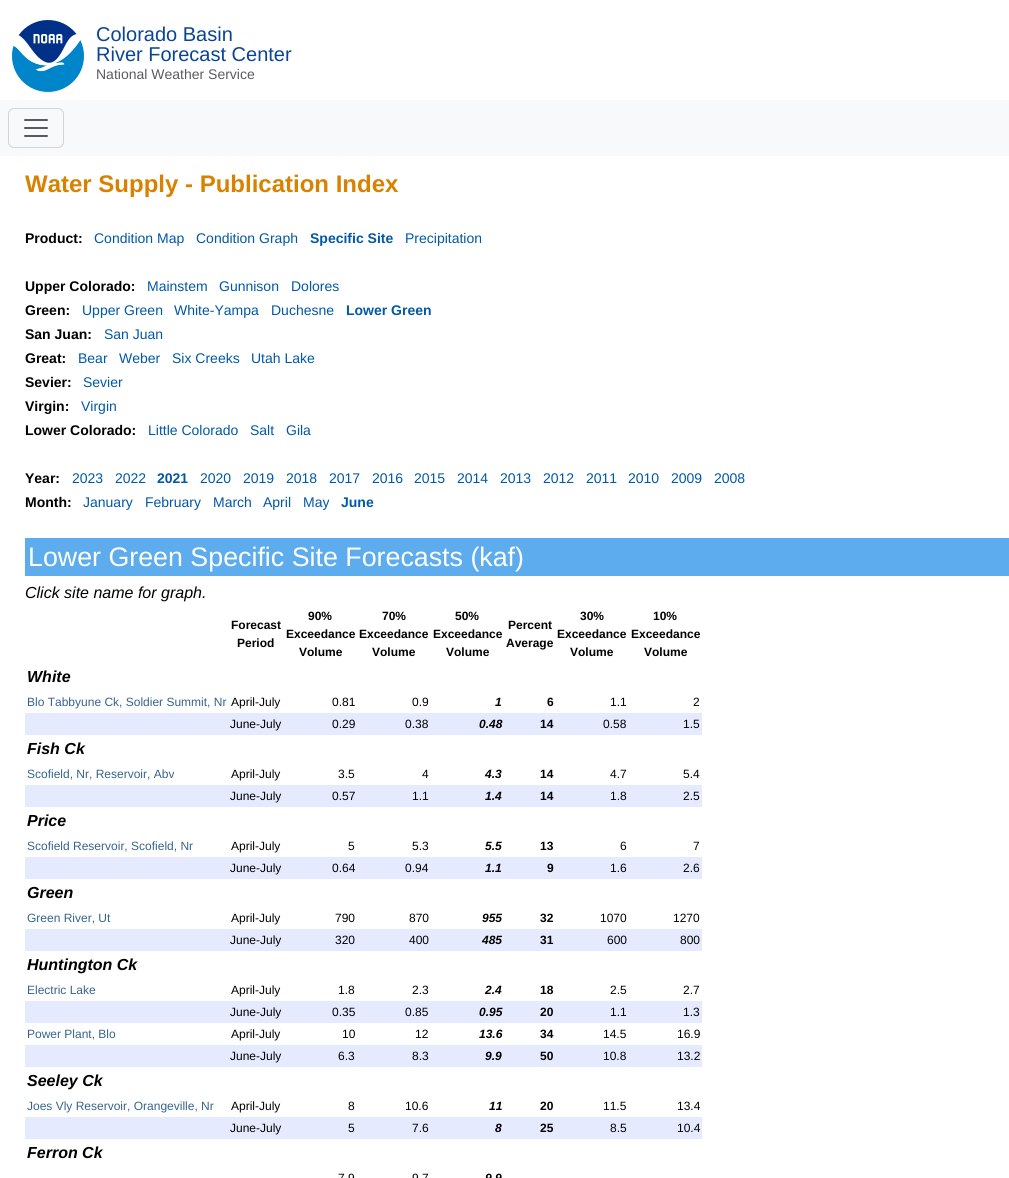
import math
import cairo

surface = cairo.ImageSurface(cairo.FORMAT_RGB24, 1009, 1178)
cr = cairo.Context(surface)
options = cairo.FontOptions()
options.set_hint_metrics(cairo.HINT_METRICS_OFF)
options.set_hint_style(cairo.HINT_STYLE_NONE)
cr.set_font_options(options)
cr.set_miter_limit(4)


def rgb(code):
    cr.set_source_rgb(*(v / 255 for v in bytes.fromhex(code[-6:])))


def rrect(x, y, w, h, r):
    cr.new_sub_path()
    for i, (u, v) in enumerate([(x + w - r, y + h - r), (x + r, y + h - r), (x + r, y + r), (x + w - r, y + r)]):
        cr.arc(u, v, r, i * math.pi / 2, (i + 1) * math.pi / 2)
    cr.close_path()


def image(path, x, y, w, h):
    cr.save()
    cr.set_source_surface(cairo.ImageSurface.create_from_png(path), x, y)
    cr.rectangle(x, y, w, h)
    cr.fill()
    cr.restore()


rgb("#ffffff")
cr.paint()
image("img/1.png", 12, 20, 72, 72)
rgb("#f8f9fa")
cr.rectangle(0, 100, 1009, 56)
cr.fill()
rrect(8.5, 108.5, 55, 39, 5.5)
rgb("#d3d4d5")
cr.set_line_width(1)
cr.stroke()
image("img/2.png", 24, 119, 24, 18)
for x, y, w, h, color in [
    (25, 538, 984, 38, "#5cacee"),
    (25, 713, 677, 22, "#e5eaff"),
    (25, 785, 677, 22, "#e5eaff"),
    (25, 857, 677, 22, "#e5eaff"),
    (25, 929, 677, 22, "#e5eaff"),
    (25, 1001, 677, 22, "#e5eaff"),
    (25, 1045, 677, 22, "#e5eaff"),
    (25, 1117, 677, 22, "#e5eaff"),
]:
    rgb(color)
    cr.rectangle(x, y, w, h)
    cr.fill()
cr.select_font_face("Liberation Sans")
cr.set_font_size(20)
rgb("#0a4595")
cr.move_to(96, 41)
cr.show_text("Colorado Basin")
cr.move_to(96, 61)
cr.show_text("River Forecast Center")
cr.set_font_size(14)
rgb("#595c5f")
cr.move_to(96, 79)
cr.show_text("National Weather Service")
cr.select_font_face("Liberation Sans", cairo.FONT_SLANT_NORMAL, cairo.FONT_WEIGHT_BOLD)
cr.set_font_size(24)
rgb("#d98100")
cr.move_to(25, 192)
cr.show_text("Water Supply - Publication Index")
cr.set_font_size(14)
rgb("#000000")
cr.move_to(25, 243)
cr.show_text("Product:")
cr.select_font_face("Liberation Sans")
rgb("#0058a6")
cr.move_to(94, 243)
cr.show_text("Condition Map")
cr.move_to(196, 243)
cr.show_text("Condition Graph")
cr.select_font_face("Liberation Sans", cairo.FONT_SLANT_NORMAL, cairo.FONT_WEIGHT_BOLD)
cr.move_to(310, 243)
cr.show_text("Specific Site")
cr.select_font_face("Liberation Sans")
cr.move_to(405, 243)
cr.show_text("Precipitation")
cr.select_font_face("Liberation Sans", cairo.FONT_SLANT_NORMAL, cairo.FONT_WEIGHT_BOLD)
rgb("#000000")
cr.move_to(25, 291)
cr.show_text("Upper Colorado:")
cr.select_font_face("Liberation Sans")
rgb("#0058a6")
for x, y, s in [
    (147, 291, "Mainstem"),
    (219, 291, "Gunnison"),
    (291, 291, "Dolores"),
]:
    cr.move_to(x, y)
    cr.show_text(s)
cr.select_font_face("Liberation Sans", cairo.FONT_SLANT_NORMAL, cairo.FONT_WEIGHT_BOLD)
rgb("#000000")
cr.move_to(25, 315)
cr.show_text("Green:")
cr.select_font_face("Liberation Sans")
rgb("#0058a6")
for x, y, s in [
    (82, 315, "Upper Green"),
    (174, 315, "White-Yampa"),
    (271, 315, "Duchesne"),
]:
    cr.move_to(x, y)
    cr.show_text(s)
cr.select_font_face("Liberation Sans", cairo.FONT_SLANT_NORMAL, cairo.FONT_WEIGHT_BOLD)
cr.move_to(346, 315)
cr.show_text("Lower Green")
rgb("#000000")
cr.move_to(25, 339)
cr.show_text("San Juan:")
cr.select_font_face("Liberation Sans")
rgb("#0058a6")
cr.move_to(104, 339)
cr.show_text("San Juan")
cr.select_font_face("Liberation Sans", cairo.FONT_SLANT_NORMAL, cairo.FONT_WEIGHT_BOLD)
rgb("#000000")
cr.move_to(25, 363)
cr.show_text("Great:")
cr.select_font_face("Liberation Sans")
rgb("#0058a6")
for x, y, s in [
    (78, 363, "Bear"),
    (119, 363, "Weber"),
    (172, 363, "Six Creeks"),
    (251, 363, "Utah Lake"),
]:
    cr.move_to(x, y)
    cr.show_text(s)
cr.select_font_face("Liberation Sans", cairo.FONT_SLANT_NORMAL, cairo.FONT_WEIGHT_BOLD)
rgb("#000000")
cr.move_to(25, 387)
cr.show_text("Sevier:")
cr.select_font_face("Liberation Sans")
rgb("#0058a6")
cr.move_to(83, 387)
cr.show_text("Sevier")
cr.select_font_face("Liberation Sans", cairo.FONT_SLANT_NORMAL, cairo.FONT_WEIGHT_BOLD)
rgb("#000000")
cr.move_to(25, 411)
cr.show_text("Virgin:")
cr.select_font_face("Liberation Sans")
rgb("#0058a6")
cr.move_to(81, 411)
cr.show_text("Virgin")
cr.select_font_face("Liberation Sans", cairo.FONT_SLANT_NORMAL, cairo.FONT_WEIGHT_BOLD)
rgb("#000000")
cr.move_to(25, 435)
cr.show_text("Lower Colorado:")
cr.select_font_face("Liberation Sans")
rgb("#0058a6")
for x, y, s in [
    (148, 435, "Little Colorado"),
    (250, 435, "Salt"),
    (286, 435, "Gila"),
]:
    cr.move_to(x, y)
    cr.show_text(s)
cr.select_font_face("Liberation Sans", cairo.FONT_SLANT_NORMAL, cairo.FONT_WEIGHT_BOLD)
rgb("#000000")
cr.move_to(25, 483)
cr.show_text("Year:")
cr.select_font_face("Liberation Sans")
rgb("#0058a6")
cr.move_to(72, 483)
cr.show_text("2023")
cr.move_to(115, 483)
cr.show_text("2022")
cr.select_font_face("Liberation Sans", cairo.FONT_SLANT_NORMAL, cairo.FONT_WEIGHT_BOLD)
cr.move_to(157, 483)
cr.show_text("2021")
cr.select_font_face("Liberation Sans")
for x, y, s in [
    (200, 483, "2020"),
    (243, 483, "2019"),
    (286, 483, "2018"),
    (329, 483, "2017"),
    (372, 483, "2016"),
    (414, 483, "2015"),
    (457, 483, "2014"),
    (500, 483, "2013"),
    (543, 483, "2012"),
    (586, 483, "2011"),
    (628, 483, "2010"),
    (671, 483, "2009"),
    (714, 483, "2008"),
]:
    cr.move_to(x, y)
    cr.show_text(s)
cr.select_font_face("Liberation Sans", cairo.FONT_SLANT_NORMAL, cairo.FONT_WEIGHT_BOLD)
rgb("#000000")
cr.move_to(25, 507)
cr.show_text("Month:")
cr.select_font_face("Liberation Sans")
rgb("#0058a6")
for x, y, s in [
    (83, 507, "January"),
    (145, 507, "February"),
    (213, 507, "March"),
    (263, 507, "April"),
    (303, 507, "May"),
]:
    cr.move_to(x, y)
    cr.show_text(s)
cr.select_font_face("Liberation Sans", cairo.FONT_SLANT_NORMAL, cairo.FONT_WEIGHT_BOLD)
cr.move_to(341, 507)
cr.show_text("June")
cr.select_font_face("Liberation Sans")
cr.set_font_size(26.8)
rgb("#ffffff")
cr.move_to(28, 566)
cr.show_text("Lower Green Specific Site Forecasts (kaf)")
cr.select_font_face("Liberation Sans", cairo.FONT_SLANT_ITALIC)
cr.set_font_size(16)
rgb("#000000")
cr.move_to(25, 598)
cr.show_text("Click site name for graph.")
cr.select_font_face("Liberation Sans", cairo.FONT_SLANT_NORMAL, cairo.FONT_WEIGHT_BOLD)
cr.set_font_size(12)
for x, y, s in [
    (231, 629, "Forecast"),
    (237, 647, "Period"),
    (308, 620, "90%"),
    (286, 638, "Exceedance"),
    (299, 656, "Volume"),
    (382, 620, "70%"),
    (359, 638, "Exceedance"),
    (372, 656, "Volume"),
    (455, 620, "50%"),
    (433, 638, "Exceedance"),
    (446, 656, "Volume"),
    (508, 629, "Percent"),
    (506, 647, "Average"),
    (580, 620, "30%"),
    (557, 638, "Exceedance"),
    (570, 656, "Volume"),
    (653, 620, "10%"),
    (631, 638, "Exceedance"),
    (644, 656, "Volume"),
]:
    cr.move_to(x, y)
    cr.show_text(s)
cr.select_font_face("Liberation Sans", cairo.FONT_SLANT_ITALIC, cairo.FONT_WEIGHT_BOLD)
cr.set_font_size(16)
cr.move_to(27, 682)
cr.show_text("White")
cr.select_font_face("Liberation Sans")
cr.set_font_size(12)
rgb("#36648b")
cr.move_to(27, 706)
cr.show_text("Blo Tabbyune Ck, Soldier Summit, Nr")
rgb("#000000")
for x, y, s in [
    (231, 706, "April-July"),
    (332, 706, "0.81"),
    (412, 706, "0.9"),
]:
    cr.move_to(x, y)
    cr.show_text(s)
cr.select_font_face("Liberation Sans", cairo.FONT_SLANT_ITALIC, cairo.FONT_WEIGHT_BOLD)
cr.move_to(495, 706)
cr.show_text("1")
cr.select_font_face("Liberation Sans", cairo.FONT_SLANT_NORMAL, cairo.FONT_WEIGHT_BOLD)
cr.move_to(547, 706)
cr.show_text("6")
cr.select_font_face("Liberation Sans")
for x, y, s in [
    (610, 706, "1.1"),
    (693, 706, "2"),
    (230, 728, "June-July"),
    (332, 728, "0.29"),
    (405, 728, "0.38"),
]:
    cr.move_to(x, y)
    cr.show_text(s)
cr.select_font_face("Liberation Sans", cairo.FONT_SLANT_ITALIC, cairo.FONT_WEIGHT_BOLD)
cr.move_to(479, 728)
cr.show_text("0.48")
cr.select_font_face("Liberation Sans", cairo.FONT_SLANT_NORMAL, cairo.FONT_WEIGHT_BOLD)
cr.move_to(540, 728)
cr.show_text("14")
cr.select_font_face("Liberation Sans")
cr.move_to(603, 728)
cr.show_text("0.58")
cr.move_to(683, 728)
cr.show_text("1.5")
cr.select_font_face("Liberation Sans", cairo.FONT_SLANT_ITALIC, cairo.FONT_WEIGHT_BOLD)
cr.set_font_size(16)
cr.move_to(27, 754)
cr.show_text("Fish Ck")
cr.select_font_face("Liberation Sans")
cr.set_font_size(12)
rgb("#36648b")
cr.move_to(27, 778)
cr.show_text("Scofield, Nr, Reservoir, Abv")
rgb("#000000")
for x, y, s in [
    (231, 778, "April-July"),
    (338, 778, "3.5"),
    (422, 778, "4"),
]:
    cr.move_to(x, y)
    cr.show_text(s)
cr.select_font_face("Liberation Sans", cairo.FONT_SLANT_ITALIC, cairo.FONT_WEIGHT_BOLD)
cr.move_to(485, 778)
cr.show_text("4.3")
cr.select_font_face("Liberation Sans", cairo.FONT_SLANT_NORMAL, cairo.FONT_WEIGHT_BOLD)
cr.move_to(540, 778)
cr.show_text("14")
cr.select_font_face("Liberation Sans")
for x, y, s in [
    (610, 778, "4.7"),
    (683, 778, "5.4"),
    (230, 800, "June-July"),
    (332, 800, "0.57"),
    (412, 800, "1.1"),
]:
    cr.move_to(x, y)
    cr.show_text(s)
cr.select_font_face("Liberation Sans", cairo.FONT_SLANT_ITALIC, cairo.FONT_WEIGHT_BOLD)
cr.move_to(485, 800)
cr.show_text("1.4")
cr.select_font_face("Liberation Sans", cairo.FONT_SLANT_NORMAL, cairo.FONT_WEIGHT_BOLD)
cr.move_to(540, 800)
cr.show_text("14")
cr.select_font_face("Liberation Sans")
cr.move_to(610, 800)
cr.show_text("1.8")
cr.move_to(683, 800)
cr.show_text("2.5")
cr.select_font_face("Liberation Sans", cairo.FONT_SLANT_ITALIC, cairo.FONT_WEIGHT_BOLD)
cr.set_font_size(16)
cr.move_to(27, 826)
cr.show_text("Price")
cr.select_font_face("Liberation Sans")
cr.set_font_size(12)
rgb("#36648b")
cr.move_to(27, 850)
cr.show_text("Scofield Reservoir, Scofield, Nr")
rgb("#000000")
for x, y, s in [
    (231, 850, "April-July"),
    (348, 850, "5"),
    (412, 850, "5.3"),
]:
    cr.move_to(x, y)
    cr.show_text(s)
cr.select_font_face("Liberation Sans", cairo.FONT_SLANT_ITALIC, cairo.FONT_WEIGHT_BOLD)
cr.move_to(485, 850)
cr.show_text("5.5")
cr.select_font_face("Liberation Sans", cairo.FONT_SLANT_NORMAL, cairo.FONT_WEIGHT_BOLD)
cr.move_to(540, 850)
cr.show_text("13")
cr.select_font_face("Liberation Sans")
for x, y, s in [
    (620, 850, "6"),
    (693, 850, "7"),
    (230, 872, "June-July"),
    (332, 872, "0.64"),
    (405, 872, "0.94"),
]:
    cr.move_to(x, y)
    cr.show_text(s)
cr.select_font_face("Liberation Sans", cairo.FONT_SLANT_ITALIC, cairo.FONT_WEIGHT_BOLD)
cr.move_to(485, 872)
cr.show_text("1.1")
cr.select_font_face("Liberation Sans", cairo.FONT_SLANT_NORMAL, cairo.FONT_WEIGHT_BOLD)
cr.move_to(547, 872)
cr.show_text("9")
cr.select_font_face("Liberation Sans")
cr.move_to(610, 872)
cr.show_text("1.6")
cr.move_to(683, 872)
cr.show_text("2.6")
cr.select_font_face("Liberation Sans", cairo.FONT_SLANT_ITALIC, cairo.FONT_WEIGHT_BOLD)
cr.set_font_size(16)
cr.move_to(27, 898)
cr.show_text("Green")
cr.select_font_face("Liberation Sans")
cr.set_font_size(12)
rgb("#36648b")
cr.move_to(27, 922)
cr.show_text("Green River, Ut")
rgb("#000000")
for x, y, s in [
    (231, 922, "April-July"),
    (335, 922, "790"),
    (409, 922, "870"),
]:
    cr.move_to(x, y)
    cr.show_text(s)
cr.select_font_face("Liberation Sans", cairo.FONT_SLANT_ITALIC, cairo.FONT_WEIGHT_BOLD)
cr.move_to(482, 922)
cr.show_text("955")
cr.select_font_face("Liberation Sans", cairo.FONT_SLANT_NORMAL, cairo.FONT_WEIGHT_BOLD)
cr.move_to(540, 922)
cr.show_text("32")
cr.select_font_face("Liberation Sans")
for x, y, s in [
    (600, 922, "1070"),
    (673, 922, "1270"),
    (230, 944, "June-July"),
    (335, 944, "320"),
    (409, 944, "400"),
]:
    cr.move_to(x, y)
    cr.show_text(s)
cr.select_font_face("Liberation Sans", cairo.FONT_SLANT_ITALIC, cairo.FONT_WEIGHT_BOLD)
cr.move_to(482, 944)
cr.show_text("485")
cr.select_font_face("Liberation Sans", cairo.FONT_SLANT_NORMAL, cairo.FONT_WEIGHT_BOLD)
cr.move_to(540, 944)
cr.show_text("31")
cr.select_font_face("Liberation Sans")
cr.move_to(607, 944)
cr.show_text("600")
cr.move_to(680, 944)
cr.show_text("800")
cr.select_font_face("Liberation Sans", cairo.FONT_SLANT_ITALIC, cairo.FONT_WEIGHT_BOLD)
cr.set_font_size(16)
cr.move_to(27, 970)
cr.show_text("Huntington Ck")
cr.select_font_face("Liberation Sans")
cr.set_font_size(12)
rgb("#36648b")
cr.move_to(27, 994)
cr.show_text("Electric Lake")
rgb("#000000")
for x, y, s in [
    (231, 994, "April-July"),
    (338, 994, "1.8"),
    (412, 994, "2.3"),
]:
    cr.move_to(x, y)
    cr.show_text(s)
cr.select_font_face("Liberation Sans", cairo.FONT_SLANT_ITALIC, cairo.FONT_WEIGHT_BOLD)
cr.move_to(485, 994)
cr.show_text("2.4")
cr.select_font_face("Liberation Sans", cairo.FONT_SLANT_NORMAL, cairo.FONT_WEIGHT_BOLD)
cr.move_to(540, 994)
cr.show_text("18")
cr.select_font_face("Liberation Sans")
for x, y, s in [
    (610, 994, "2.5"),
    (683, 994, "2.7"),
    (230, 1016, "June-July"),
    (332, 1016, "0.35"),
    (405, 1016, "0.85"),
]:
    cr.move_to(x, y)
    cr.show_text(s)
cr.select_font_face("Liberation Sans", cairo.FONT_SLANT_ITALIC, cairo.FONT_WEIGHT_BOLD)
cr.move_to(479, 1016)
cr.show_text("0.95")
cr.select_font_face("Liberation Sans", cairo.FONT_SLANT_NORMAL, cairo.FONT_WEIGHT_BOLD)
cr.move_to(540, 1016)
cr.show_text("20")
cr.select_font_face("Liberation Sans")
cr.move_to(610, 1016)
cr.show_text("1.1")
cr.move_to(683, 1016)
cr.show_text("1.3")
rgb("#36648b")
cr.move_to(27, 1038)
cr.show_text("Power Plant, Blo")
rgb("#000000")
for x, y, s in [
    (231, 1038, "April-July"),
    (342, 1038, "10"),
    (415, 1038, "12"),
]:
    cr.move_to(x, y)
    cr.show_text(s)
cr.select_font_face("Liberation Sans", cairo.FONT_SLANT_ITALIC, cairo.FONT_WEIGHT_BOLD)
cr.move_to(479, 1038)
cr.show_text("13.6")
cr.select_font_face("Liberation Sans", cairo.FONT_SLANT_NORMAL, cairo.FONT_WEIGHT_BOLD)
cr.move_to(540, 1038)
cr.show_text("34")
cr.select_font_face("Liberation Sans")
for x, y, s in [
    (603, 1038, "14.5"),
    (677, 1038, "16.9"),
    (230, 1060, "June-July"),
    (338, 1060, "6.3"),
    (412, 1060, "8.3"),
]:
    cr.move_to(x, y)
    cr.show_text(s)
cr.select_font_face("Liberation Sans", cairo.FONT_SLANT_ITALIC, cairo.FONT_WEIGHT_BOLD)
cr.move_to(485, 1060)
cr.show_text("9.9")
cr.select_font_face("Liberation Sans", cairo.FONT_SLANT_NORMAL, cairo.FONT_WEIGHT_BOLD)
cr.move_to(540, 1060)
cr.show_text("50")
cr.select_font_face("Liberation Sans")
cr.move_to(603, 1060)
cr.show_text("10.8")
cr.move_to(677, 1060)
cr.show_text("13.2")
cr.select_font_face("Liberation Sans", cairo.FONT_SLANT_ITALIC, cairo.FONT_WEIGHT_BOLD)
cr.set_font_size(16)
cr.move_to(27, 1086)
cr.show_text("Seeley Ck")
cr.select_font_face("Liberation Sans")
cr.set_font_size(12)
rgb("#36648b")
cr.move_to(27, 1110)
cr.show_text("Joes Vly Reservoir, Orangeville, Nr")
rgb("#000000")
for x, y, s in [
    (231, 1110, "April-July"),
    (348, 1110, "8"),
    (405, 1110, "10.6"),
]:
    cr.move_to(x, y)
    cr.show_text(s)
cr.select_font_face("Liberation Sans", cairo.FONT_SLANT_ITALIC, cairo.FONT_WEIGHT_BOLD)
cr.move_to(489, 1110)
cr.show_text("11")
cr.select_font_face("Liberation Sans", cairo.FONT_SLANT_NORMAL, cairo.FONT_WEIGHT_BOLD)
cr.move_to(540, 1110)
cr.show_text("20")
cr.select_font_face("Liberation Sans")
for x, y, s in [
    (603, 1110, "11.5"),
    (677, 1110, "13.4"),
    (230, 1132, "June-July"),
    (348, 1132, "5"),
    (412, 1132, "7.6"),
]:
    cr.move_to(x, y)
    cr.show_text(s)
cr.select_font_face("Liberation Sans", cairo.FONT_SLANT_ITALIC, cairo.FONT_WEIGHT_BOLD)
cr.move_to(495, 1132)
cr.show_text("8")
cr.select_font_face("Liberation Sans", cairo.FONT_SLANT_NORMAL, cairo.FONT_WEIGHT_BOLD)
cr.move_to(540, 1132)
cr.show_text("25")
cr.select_font_face("Liberation Sans")
cr.move_to(610, 1132)
cr.show_text("8.5")
cr.move_to(677, 1132)
cr.show_text("10.4")
cr.select_font_face("Liberation Sans", cairo.FONT_SLANT_ITALIC, cairo.FONT_WEIGHT_BOLD)
cr.set_font_size(16)
cr.move_to(27, 1158)
cr.show_text("Ferron Ck")
cr.select_font_face("Liberation Sans")
cr.set_font_size(12)
cr.move_to(338, 1182)
cr.show_text("7.9")
cr.move_to(412, 1182)
cr.show_text("9.7")
cr.select_font_face("Liberation Sans", cairo.FONT_SLANT_ITALIC, cairo.FONT_WEIGHT_BOLD)
cr.move_to(485, 1182)
cr.show_text("9.9")
surface.write_to_png("page.png")
